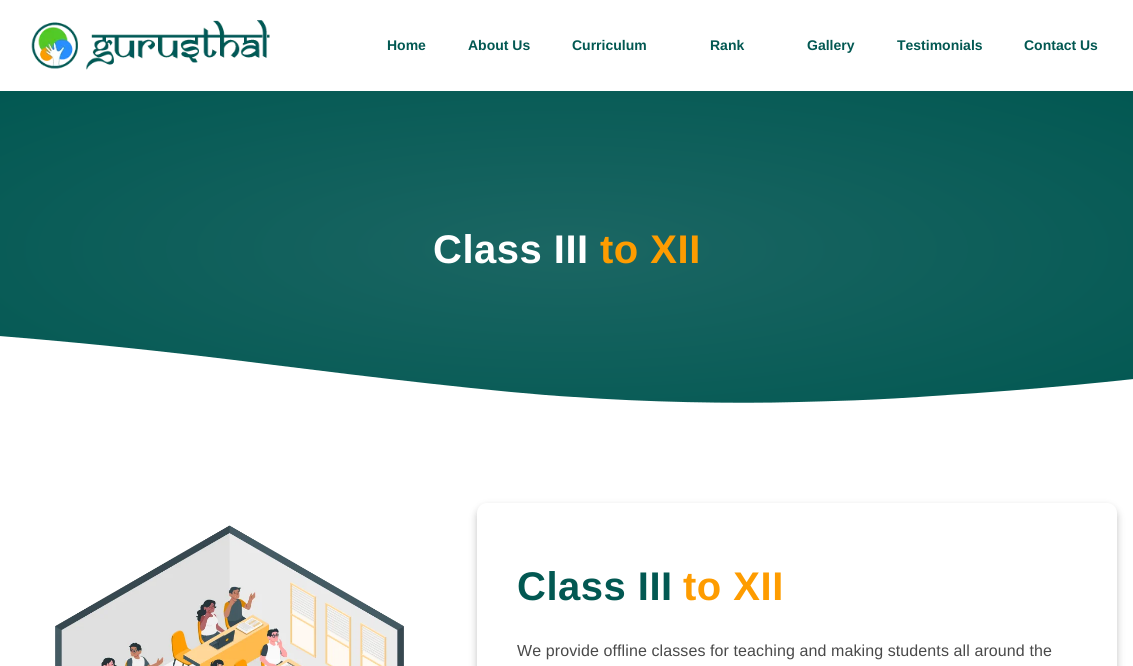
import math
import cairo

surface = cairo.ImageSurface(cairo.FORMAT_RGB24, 1133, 666)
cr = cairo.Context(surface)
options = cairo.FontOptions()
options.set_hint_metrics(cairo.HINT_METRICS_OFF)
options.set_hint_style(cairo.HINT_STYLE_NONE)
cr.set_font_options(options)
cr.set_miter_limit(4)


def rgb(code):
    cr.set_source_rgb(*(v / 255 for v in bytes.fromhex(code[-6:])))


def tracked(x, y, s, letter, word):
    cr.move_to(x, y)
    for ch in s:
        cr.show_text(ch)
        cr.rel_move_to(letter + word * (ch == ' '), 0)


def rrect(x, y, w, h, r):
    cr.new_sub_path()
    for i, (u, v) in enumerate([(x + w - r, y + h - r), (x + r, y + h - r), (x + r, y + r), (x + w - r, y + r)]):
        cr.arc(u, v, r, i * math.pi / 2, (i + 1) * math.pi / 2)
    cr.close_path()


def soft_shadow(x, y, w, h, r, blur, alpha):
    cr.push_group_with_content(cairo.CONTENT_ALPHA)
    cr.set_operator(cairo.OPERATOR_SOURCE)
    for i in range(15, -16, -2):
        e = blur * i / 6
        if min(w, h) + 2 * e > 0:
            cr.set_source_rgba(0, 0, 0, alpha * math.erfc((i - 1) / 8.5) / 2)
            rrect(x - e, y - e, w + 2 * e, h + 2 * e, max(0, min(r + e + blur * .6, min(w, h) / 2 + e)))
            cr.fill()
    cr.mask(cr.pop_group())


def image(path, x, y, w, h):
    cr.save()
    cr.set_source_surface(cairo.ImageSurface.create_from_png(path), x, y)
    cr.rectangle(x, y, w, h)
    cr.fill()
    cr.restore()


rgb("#ffffff")
cr.paint()
image("img/1.png", 31, 20, 239, 50)
gradient = cairo.RadialGradient(0, 0, 0, 0, 0, 1)
gradient.set_matrix(cairo.Matrix(1 / 801, 0, 0, 1 / 223, -1 * 567 / 801, -1 * 249 / 223))
gradient.add_color_stop_rgba(0, 0.106, 0.4, 0.388, 1)
gradient.add_color_stop_rgba(1, 0.008, 0.345, 0.322, 1)
cr.set_source(gradient)
cr.rectangle(0, 91, 1133, 312)
cr.fill()
rgb("#ffffff")
cr.new_path()
cr.move_to(799, 402)
cr.curve_to(731, 404, 645, 402, 574, 397)
cr.curve_to(503, 393, 362, 376, 274, 365)
cr.curve_to(48, 336, -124, 325, -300, 321)
cr.curve_to(-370, 319, -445, 317, -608, 323)
cr.curve_to(-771, 328, -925, 346, -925, 346)
cr.line_to(-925, 408)
cr.line_to(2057, 408)
cr.line_to(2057, 381)
cr.curve_to(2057, 381, 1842, 351, 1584, 353)
cr.curve_to(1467, 354, 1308, 359, 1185, 373)
cr.curve_to(1122, 381, 1029, 390, 947, 395)
cr.curve_to(866, 401, 830, 401, 799, 402)
cr.close_path()
cr.fill()
image("img/2.png", 55, 525, 349, 141)
rgb("#000000")
soft_shadow(477, 507, 640, 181, 10, 4, 0.24)
rgb("#ffffff")
rrect(477, 503, 640, 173, 10)
cr.fill()
cr.select_font_face("Liberation Sans", cairo.FONT_SLANT_NORMAL, cairo.FONT_WEIGHT_BOLD)
cr.set_font_size(14)
rgb("#025852")
for x, y, s in [
    (387, 50, "Home"),
    (468, 50, "About Us"),
    (572, 50, "Curriculum"),
    (710, 50, "Rank"),
    (807, 50, "Gallery"),
    (897, 50, "Testimonials"),
    (1024, 50, "Contact Us"),
]:
    cr.move_to(x, y)
    cr.show_text(s)
cr.set_font_size(40)
rgb("#ffffff")
tracked(433, 263, "Class III", 0.5, 0)
rgb("#fe9c00")
tracked(600, 263, "to XII", 0.5, 0)
rgb("#025852")
tracked(517, 600, "Class III", 0.5, 0)
rgb("#fe9c00")
tracked(683, 600, "to XII", 0.5, 0)
cr.select_font_face("Liberation Sans")
cr.set_font_size(16)
rgb("#494949")
tracked(517, 656, "We provide offline classes for teaching and making students all around the", 0.1, 0)
surface.write_to_png("page.png")
